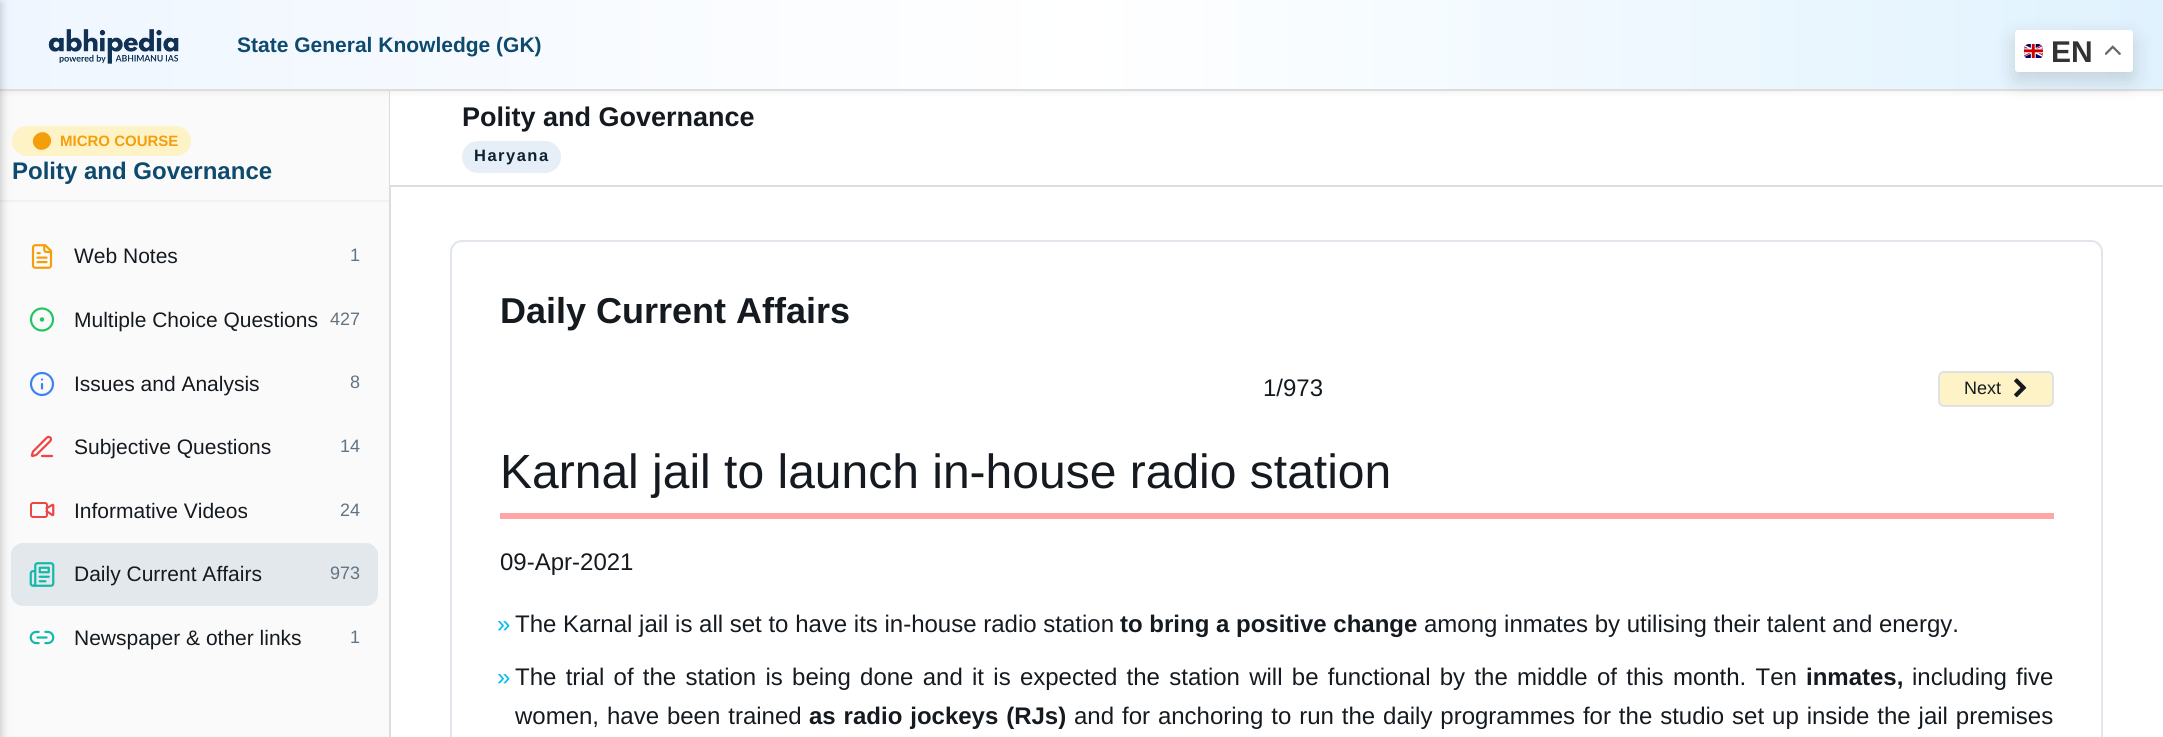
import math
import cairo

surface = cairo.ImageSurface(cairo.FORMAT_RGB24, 2163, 737)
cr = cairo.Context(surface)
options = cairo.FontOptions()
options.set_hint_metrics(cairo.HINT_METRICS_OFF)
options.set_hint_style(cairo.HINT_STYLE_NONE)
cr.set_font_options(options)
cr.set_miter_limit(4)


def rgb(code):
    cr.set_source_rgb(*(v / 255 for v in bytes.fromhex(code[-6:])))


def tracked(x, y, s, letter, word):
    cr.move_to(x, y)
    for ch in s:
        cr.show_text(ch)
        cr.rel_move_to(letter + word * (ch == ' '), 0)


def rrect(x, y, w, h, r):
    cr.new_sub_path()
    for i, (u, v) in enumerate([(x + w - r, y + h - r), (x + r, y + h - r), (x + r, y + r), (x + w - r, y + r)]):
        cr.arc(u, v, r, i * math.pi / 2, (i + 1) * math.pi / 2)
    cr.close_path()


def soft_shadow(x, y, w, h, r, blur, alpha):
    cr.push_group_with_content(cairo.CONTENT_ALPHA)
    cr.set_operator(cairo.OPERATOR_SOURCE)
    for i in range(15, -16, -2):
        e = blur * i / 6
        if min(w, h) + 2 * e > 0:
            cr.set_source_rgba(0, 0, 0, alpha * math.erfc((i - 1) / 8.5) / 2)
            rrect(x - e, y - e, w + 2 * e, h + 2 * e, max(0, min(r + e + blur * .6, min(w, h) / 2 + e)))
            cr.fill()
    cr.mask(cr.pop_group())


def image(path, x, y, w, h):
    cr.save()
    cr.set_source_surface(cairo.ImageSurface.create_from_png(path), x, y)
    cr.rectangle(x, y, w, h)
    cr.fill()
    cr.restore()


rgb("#ffffff")
cr.paint()
for x, y, w, h, color in [
    (0, 91, 389, 646, "#fafafa"),
    (389, 90, 2, 647, "#dddddd"),
    (390, 91, 1, 94, "#ffffff"),
]:
    rgb(color)
    cr.rectangle(x, y, w, h)
    cr.fill()
rgb("#000000")
soft_shadow(0, 3, 2163, 90, 0, 3, 0.05)
gradient = cairo.LinearGradient(0, 44, 2163, 44)
gradient.add_color_stop_rgba(0, 0.937, 0.965, 1, 1)
gradient.add_color_stop_rgba(0.5, 1, 1, 1, 1)
gradient.add_color_stop_rgba(1, 0.878, 0.949, 0.996, 1)
cr.set_source(gradient)
cr.rectangle(0, 0, 2163, 89)
cr.fill()
rgb("#dddddd")
cr.rectangle(0, 89, 2163, 2)
cr.fill()
rgb("#eef1f5")
cr.rectangle(0, 200, 389, 2)
cr.fill()
rgb("#fef3c7")
rrect(12, 126, 179, 30, 15)
cr.fill()
rgb("#e3e8ec")
rrect(11, 543, 367, 63, 12)
cr.fill()
rgb("#000000")
soft_shadow(-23, 3, 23, 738, 0, 7.5, 0.12)
soft_shadow(-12, 3, 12, 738, 0, 4, 0.16)
image("img/1.png", 48, 29, 131, 35)
rgb("#f59e0b")
cr.new_path()
cr.move_to(50, 136.5)
cr.curve_to(55.5, 146.5, 40, 155.5, 34, 145.5)
cr.curve_to(28.5, 135.5, 44, 126.5, 50, 136.5)
cr.close_path()
cr.fill()
image("img/2.png", 31, 244, 22, 25)
cr.arc(42, 319.5, 11, 0, 2 * math.pi)
rgb("#22c55e")
cr.set_line_width(2.2)
cr.stroke()
cr.arc(42, 319.5, 1.1, 0, 2 * math.pi)
cr.stroke()
cr.arc(42, 384, 11, 0, 2 * math.pi)
rgb("#3b82f6")
cr.stroke()
cr.new_path()
cr.move_to(42, 388.5)
cr.line_to(42, 384)
cr.move_to(42, 379.5)
cr.line_to(42, 379.5)
cr.set_line_cap(cairo.LINE_CAP_ROUND)
cr.set_line_join(cairo.LINE_JOIN_ROUND)
cr.stroke()
image("img/3.png", 30, 435, 24, 23)
image("img/4.png", 30, 502, 25, 16)
image("img/5.png", 29, 562, 26, 25)
image("img/6.png", 29, 630, 26, 15)
rgb("#dddddd")
cr.rectangle(390, 185, 1773, 2)
cr.fill()
rgb("#e6eef7")
rrect(462, 141, 99, 32, 16)
cr.fill()
rrect(451, 241, 1651, 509, 11)
rgb("#e0e6eb")
cr.set_line_width(2)
cr.set_line_cap(cairo.LINE_CAP_BUTT)
cr.set_line_join(cairo.LINE_JOIN_MITER)
cr.stroke()
rgb("#fef3c7")
rrect(1939, 372, 114, 34, 5)
cr.fill_preserve()
rgb("#dee2e6")
cr.stroke()
image("img/7.png", 2014, 378, 13, 20)
rgb("#ffa5a5")
cr.rectangle(500, 513, 1554, 6)
cr.fill()
rgb("#000000")
soft_shadow(2015, 38, 118, 42, 3, 11, 0.15)
rgb("#ffffff")
rrect(2015, 30, 118, 42, 3)
cr.fill()
image("img/8.png", 2024, 44, 19, 15)
image("img/9.png", 2105, 45, 16, 10)
cr.select_font_face("Liberation Sans", cairo.FONT_SLANT_NORMAL, cairo.FONT_WEIGHT_BOLD)
cr.set_font_size(21)
rgb("#0d4a6d")
cr.move_to(237, 52)
cr.show_text("State General Knowledge (GK)")
cr.set_font_size(15)
rgb("#f59e0b")
cr.move_to(60, 146)
cr.show_text("MICRO COURSE")
cr.set_font_size(24)
rgb("#0d4a6d")
cr.move_to(12, 179)
cr.show_text("Polity and Governance")
cr.select_font_face("Liberation Sans")
cr.set_font_size(21)
rgb("#141a1f")
cr.move_to(74, 263)
cr.show_text("Web Notes")
cr.set_font_size(18)
rgb("#627384")
cr.move_to(350, 261)
cr.show_text("1")
cr.set_font_size(21)
rgb("#141a1f")
cr.move_to(74, 327)
cr.show_text("Multiple Choice Questions")
cr.set_font_size(18)
rgb("#627384")
cr.move_to(330, 325)
cr.show_text("427")
cr.set_font_size(21)
rgb("#141a1f")
cr.move_to(74, 391)
cr.show_text("Issues and Analysis")
cr.set_font_size(18)
rgb("#627384")
cr.move_to(350, 388)
cr.show_text("8")
cr.set_font_size(21)
rgb("#141a1f")
cr.move_to(74, 454)
cr.show_text("Subjective Questions")
cr.set_font_size(18)
rgb("#627384")
cr.move_to(340, 452)
cr.show_text("14")
cr.set_font_size(21)
rgb("#141a1f")
cr.move_to(74, 518)
cr.show_text("Informative Videos")
cr.set_font_size(18)
rgb("#627384")
cr.move_to(340, 516)
cr.show_text("24")
cr.set_font_size(21)
rgb("#141a1f")
cr.move_to(74, 581)
cr.show_text("Daily Current Affairs")
cr.set_font_size(18)
rgb("#627384")
cr.move_to(330, 579)
cr.show_text("973")
cr.set_font_size(21)
rgb("#141a1f")
cr.move_to(74, 645)
cr.show_text("Newspaper & other links")
cr.set_font_size(18)
rgb("#627384")
cr.move_to(350, 643)
cr.show_text("1")
cr.select_font_face("Liberation Sans", cairo.FONT_SLANT_NORMAL, cairo.FONT_WEIGHT_BOLD)
cr.set_font_size(27)
rgb("#141a1f")
cr.move_to(462, 126)
cr.show_text("Polity and Governance")
cr.set_font_size(16.5)
rgb("#0d2233")
tracked(474, 161, "Haryana", 1.5, 0)
cr.set_font_size(36)
rgb("#141a1f")
cr.move_to(500, 323)
cr.show_text("Daily Current Affairs")
cr.select_font_face("Liberation Sans")
cr.set_font_size(24)
cr.move_to(1263, 396)
cr.show_text("1/973")
cr.set_font_size(18)
cr.move_to(1964, 394)
cr.show_text("Next")
cr.set_font_size(48)
cr.move_to(500, 488)
cr.show_text("Karnal jail to launch in-house radio station")
cr.set_font_size(24)
cr.move_to(500, 570)
cr.show_text("09-Apr-2021")
rgb("#00bded")
cr.move_to(497, 632)
cr.show_text("»")
rgb("#141a1f")
cr.move_to(515, 632)
cr.show_text("The Karnal jail is all set to have its in-house radio station")
cr.select_font_face("Liberation Sans", cairo.FONT_SLANT_NORMAL, cairo.FONT_WEIGHT_BOLD)
cr.move_to(1120, 632)
cr.show_text("to bring a positive change")
cr.select_font_face("Liberation Sans")
cr.move_to(1424, 632)
cr.show_text("among inmates by utilising their talent and energy.")
rgb("#00bded")
cr.move_to(497, 685)
cr.show_text("»")
rgb("#141a1f")
tracked(515, 685, "The trial of the station is being done and it is expected the station will be functional by the middle of this month. Ten", 0, 2.6)
cr.select_font_face("Liberation Sans", cairo.FONT_SLANT_NORMAL, cairo.FONT_WEIGHT_BOLD)
cr.move_to(1806, 685)
cr.show_text("inmates,")
cr.select_font_face("Liberation Sans")
tracked(1912, 685, "including five", 0, 2.6)
tracked(515, 724, "women, have been trained", 0, 1.25)
cr.select_font_face("Liberation Sans", cairo.FONT_SLANT_NORMAL, cairo.FONT_WEIGHT_BOLD)
tracked(809, 724, "as radio jockeys (RJs)", 0, 1.25)
cr.select_font_face("Liberation Sans")
tracked(1074, 724, "and for anchoring to run the daily programmes for the studio set up inside the jail premises", 0, 1.25)
cr.select_font_face("Liberation Sans", cairo.FONT_SLANT_NORMAL, cairo.FONT_WEIGHT_BOLD)
cr.set_font_size(30)
rgb("#333333")
cr.move_to(2051, 62)
cr.show_text("EN")
surface.write_to_png("page.png")
